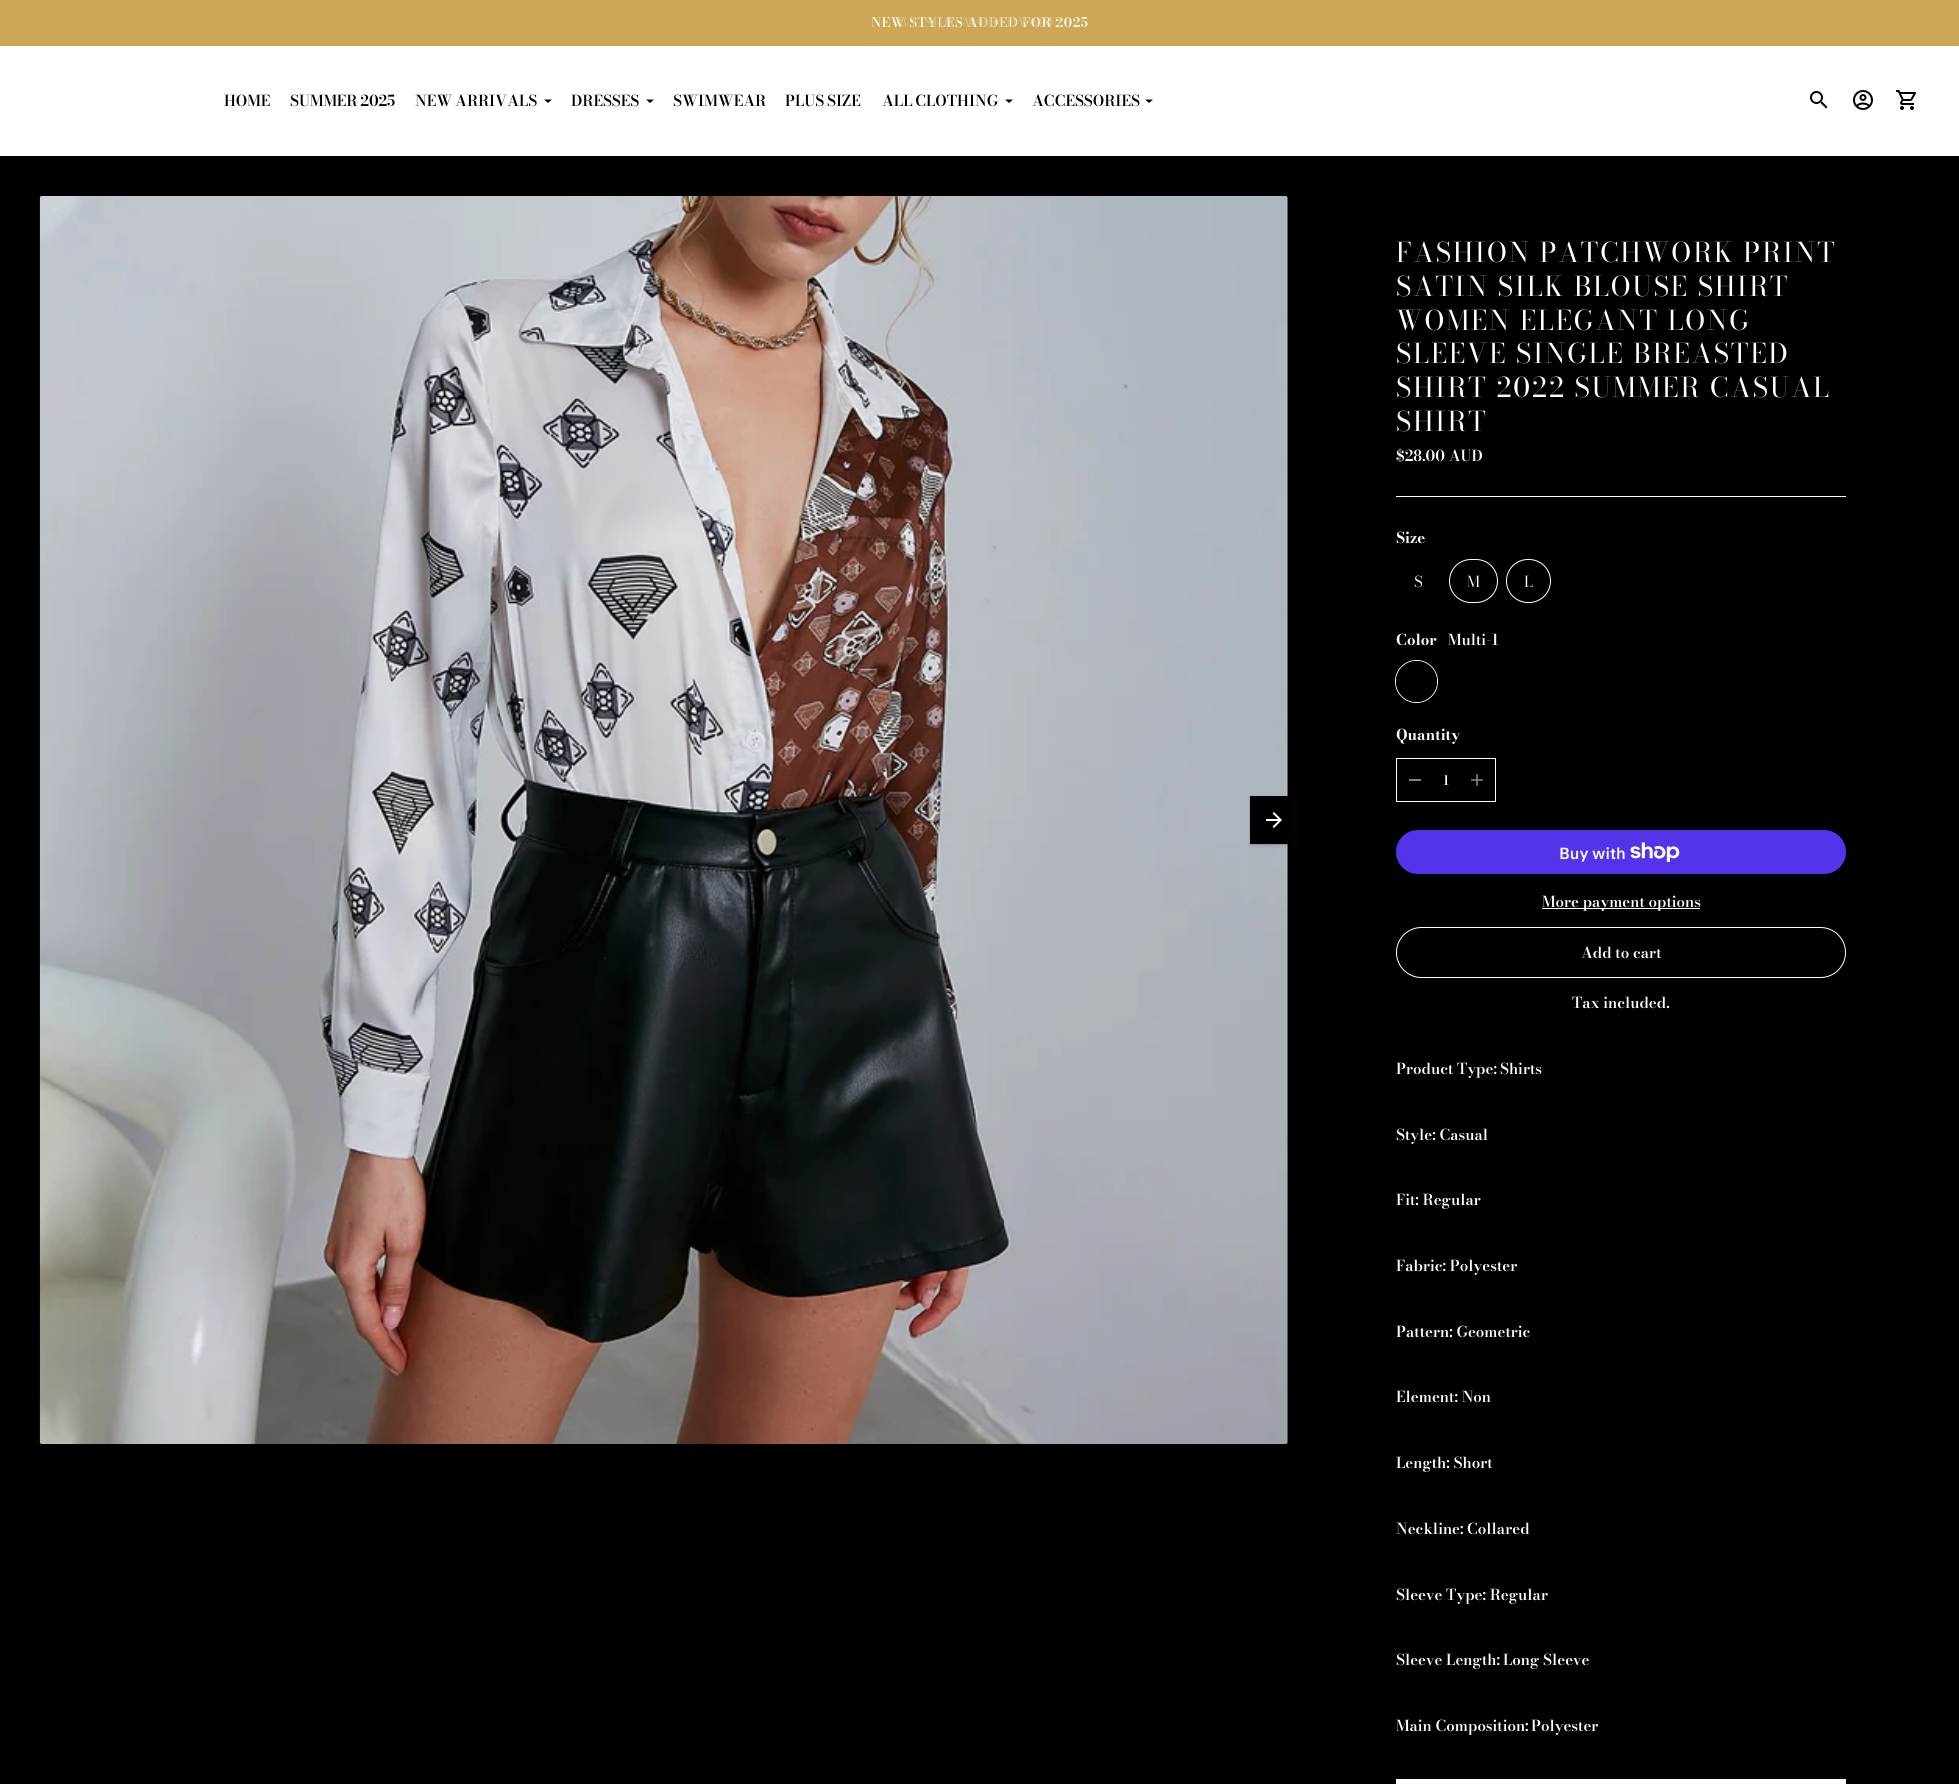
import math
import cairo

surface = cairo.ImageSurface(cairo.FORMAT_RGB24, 1959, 1784)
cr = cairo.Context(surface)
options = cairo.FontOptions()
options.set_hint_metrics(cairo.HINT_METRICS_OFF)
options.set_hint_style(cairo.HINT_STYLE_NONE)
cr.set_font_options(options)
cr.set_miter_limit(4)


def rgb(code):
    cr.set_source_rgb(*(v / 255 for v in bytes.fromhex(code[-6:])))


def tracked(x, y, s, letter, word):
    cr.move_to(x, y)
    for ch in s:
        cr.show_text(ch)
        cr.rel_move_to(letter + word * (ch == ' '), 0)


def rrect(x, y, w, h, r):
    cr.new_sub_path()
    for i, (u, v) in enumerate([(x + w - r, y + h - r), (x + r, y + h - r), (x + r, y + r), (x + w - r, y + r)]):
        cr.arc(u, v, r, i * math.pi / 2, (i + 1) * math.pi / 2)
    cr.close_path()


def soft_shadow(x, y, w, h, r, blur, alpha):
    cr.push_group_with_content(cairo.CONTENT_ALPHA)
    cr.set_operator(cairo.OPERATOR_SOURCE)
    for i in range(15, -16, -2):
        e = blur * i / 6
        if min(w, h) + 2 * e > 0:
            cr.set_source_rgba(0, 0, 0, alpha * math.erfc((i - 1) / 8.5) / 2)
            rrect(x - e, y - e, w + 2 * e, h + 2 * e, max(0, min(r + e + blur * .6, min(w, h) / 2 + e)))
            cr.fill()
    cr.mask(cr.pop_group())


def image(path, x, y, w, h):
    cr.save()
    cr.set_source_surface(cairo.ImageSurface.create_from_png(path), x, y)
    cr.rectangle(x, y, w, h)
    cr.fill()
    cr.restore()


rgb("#000000")
cr.paint()
rgb("#cca755")
cr.rectangle(0, 0, 1959, 46)
cr.fill()
rgb("#ffffff")
cr.rectangle(0, 46, 1959, 110)
cr.fill()
rgb("#000000")
cr.new_path()
cr.move_to(544, 99.5)
cr.line_to(548, 103)
cr.line_to(552, 99.5)
cr.close_path()
cr.fill()
cr.new_path()
cr.move_to(646, 99.5)
cr.line_to(650, 103)
cr.line_to(654, 99.5)
cr.close_path()
cr.fill()
cr.new_path()
cr.move_to(1005, 99.5)
cr.line_to(1009, 103)
cr.line_to(1013, 99.5)
cr.close_path()
cr.fill()
cr.new_path()
cr.move_to(1145, 99.5)
cr.line_to(1149, 103)
cr.line_to(1153, 99.5)
cr.close_path()
cr.fill()
image("img/1.png", 1810, 91, 18, 18)
image("img/2.png", 1853, 90, 20, 20)
image("img/3.png", 1896, 90, 20, 20)
rgb("#0a0a0a")
rrect(40, 196, 1248, 1248, 2)
cr.fill()
image("img/4.png", 39, 196, 1249, 1248)
rgb("#000000")
soft_shadow(1250, 797, 48, 48, 0, 1, 0.12)
rgb("#1a1a1a")
soft_shadow(1250, 798, 48, 48, 0, 2, 0.1)
rgb("#000000")
cr.rectangle(1250, 796, 41, 48)
cr.fill()
image("img/5.png", 1266, 812, 16, 16)
rgb("#ffffff")
cr.rectangle(1396, 496, 450, 1)
cr.fill()
rrect(1449.5, 559.5, 48, 43, 21.5)
cr.set_line_width(1)
cr.stroke()
rrect(1506.5, 559.5, 44, 43, 21.5)
cr.stroke()
cr.arc(1416.5, 681.5, 21, 0, 2 * math.pi)
cr.stroke()
cr.arc(1416.5, 681.5, 18.5, 0, 2 * math.pi)
rgb("#000000")
cr.set_line_width(4)
cr.stroke()
cr.rectangle(1396.5, 758.5, 99, 43)
rgb("#ffffff")
cr.set_line_width(1)
cr.stroke()
rgb("#808080")
cr.rectangle(1409, 779, 12, 2)
cr.fill()
image("img/6.png", 1471, 774, 12, 12)
rgb("#5433eb")
rrect(1396, 830, 450, 44, 22)
cr.fill()
image("img/7.png", 1630, 842, 50, 20)
rgb("#ffffff")
cr.rectangle(1542, 908, 158, 1)
cr.fill()
rrect(1396.5, 927.5, 449, 50, 25)
cr.stroke()
cr.rectangle(1396, 1779, 450, 5)
cr.fill()
cr.select_font_face("Bodoni Moda SemiBold")
cr.set_font_size(13)
tracked(871, 27, "NEW STYLES ADDED FOR 2025", 0.65, 0)
rgb("#d8bb7c")
tracked(897, 27, "WE SHIP WORLDWIDE!", 0.65, 0)
cr.set_font_size(15)
rgb("#000000")
cr.move_to(224, 106)
cr.show_text("HOME")
tracked(290, 106, "SUMMER 2025", 0, -1)
tracked(415, 106, "NEW ARRIVALS", 0, -1)
cr.move_to(571, 106)
cr.show_text("DRESSES")
cr.move_to(673, 106)
cr.show_text("SWIMWEAR")
tracked(785, 106, "PLUS SIZE", 0, -1)
tracked(882, 106, "ALL CLOTHING", 0, -1)
cr.move_to(1032, 106)
cr.show_text("ACCESSORIES")
cr.select_font_face("Bodoni Moda")
cr.set_font_size(27)
rgb("#ffffff")
for x, y, s in [
    (1396, 262, "FASHION PATCHWORK PRINT"),
    (1396, 296, "SATIN SILK BLOUSE SHIRT"),
    (1396, 330, "WOMEN ELEGANT LONG"),
    (1396, 363, "SLEEVE SINGLE BREASTED"),
    (1396, 397, "SHIRT 2022 SUMMER CASUAL"),
    (1396, 431, "SHIRT"),
]:
    tracked(x, y, s, 2, 0)
cr.select_font_face("Bodoni Moda SemiBold")
cr.set_font_size(15)
cr.move_to(1396, 461)
cr.show_text("$28.00 AUD")
cr.select_font_face("Bodoni Moda", cairo.FONT_SLANT_NORMAL, cairo.FONT_WEIGHT_BOLD)
cr.move_to(1396, 543)
cr.show_text("Size")
cr.select_font_face("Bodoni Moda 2")
cr.move_to(1414, 587)
cr.show_text("S")
cr.select_font_face("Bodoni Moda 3")
cr.move_to(1467, 587)
cr.show_text("M")
cr.move_to(1524, 587)
cr.show_text("L")
cr.select_font_face("Bodoni Moda", cairo.FONT_SLANT_NORMAL, cairo.FONT_WEIGHT_BOLD)
cr.move_to(1396, 645)
cr.show_text("Color")
cr.select_font_face("Bodoni Moda SemiBold")
cr.move_to(1448, 645)
cr.show_text("Multi-1")
cr.select_font_face("Bodoni Moda", cairo.FONT_SLANT_NORMAL, cairo.FONT_WEIGHT_BOLD)
cr.move_to(1396, 740)
cr.show_text("Quantity")
cr.select_font_face("Bodoni Moda SemiBold")
cr.set_font_size(13)
cr.move_to(1443, 785)
cr.show_text("1")
cr.select_font_face("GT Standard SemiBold")
cr.set_font_size(16)
cr.move_to(1559, 859)
cr.show_text("Buy with")
cr.select_font_face("Bodoni Moda SemiBold")
cr.set_font_size(15)
for x, y, s in [
    (1542, 907, "More payment options"),
    (1581, 958, "Add to cart"),
    (1572, 1008, "Tax included."),
    (1396, 1074, "Product Type:"),
    (1500, 1074, "Shirts"),
    (1396, 1140, "Style: Casual"),
    (1396, 1205, "Fit: Regular"),
    (1396, 1271, "Fabric: Polyester"),
    (1396, 1337, "Pattern: Geometric"),
    (1396, 1402, "Element: Non"),
    (1396, 1468, "Length: Short"),
    (1396, 1534, "Neckline:"),
    (1467, 1534, "Collared"),
    (1396, 1600, "Sleeve Type: Regular"),
    (1396, 1665, "Sleeve Length:"),
    (1503, 1665, "Long Sleeve"),
    (1396, 1731, "Main Composition:"),
    (1531, 1731, "Polyester"),
]:
    cr.move_to(x, y)
    cr.show_text(s)
surface.write_to_png("page.png")
